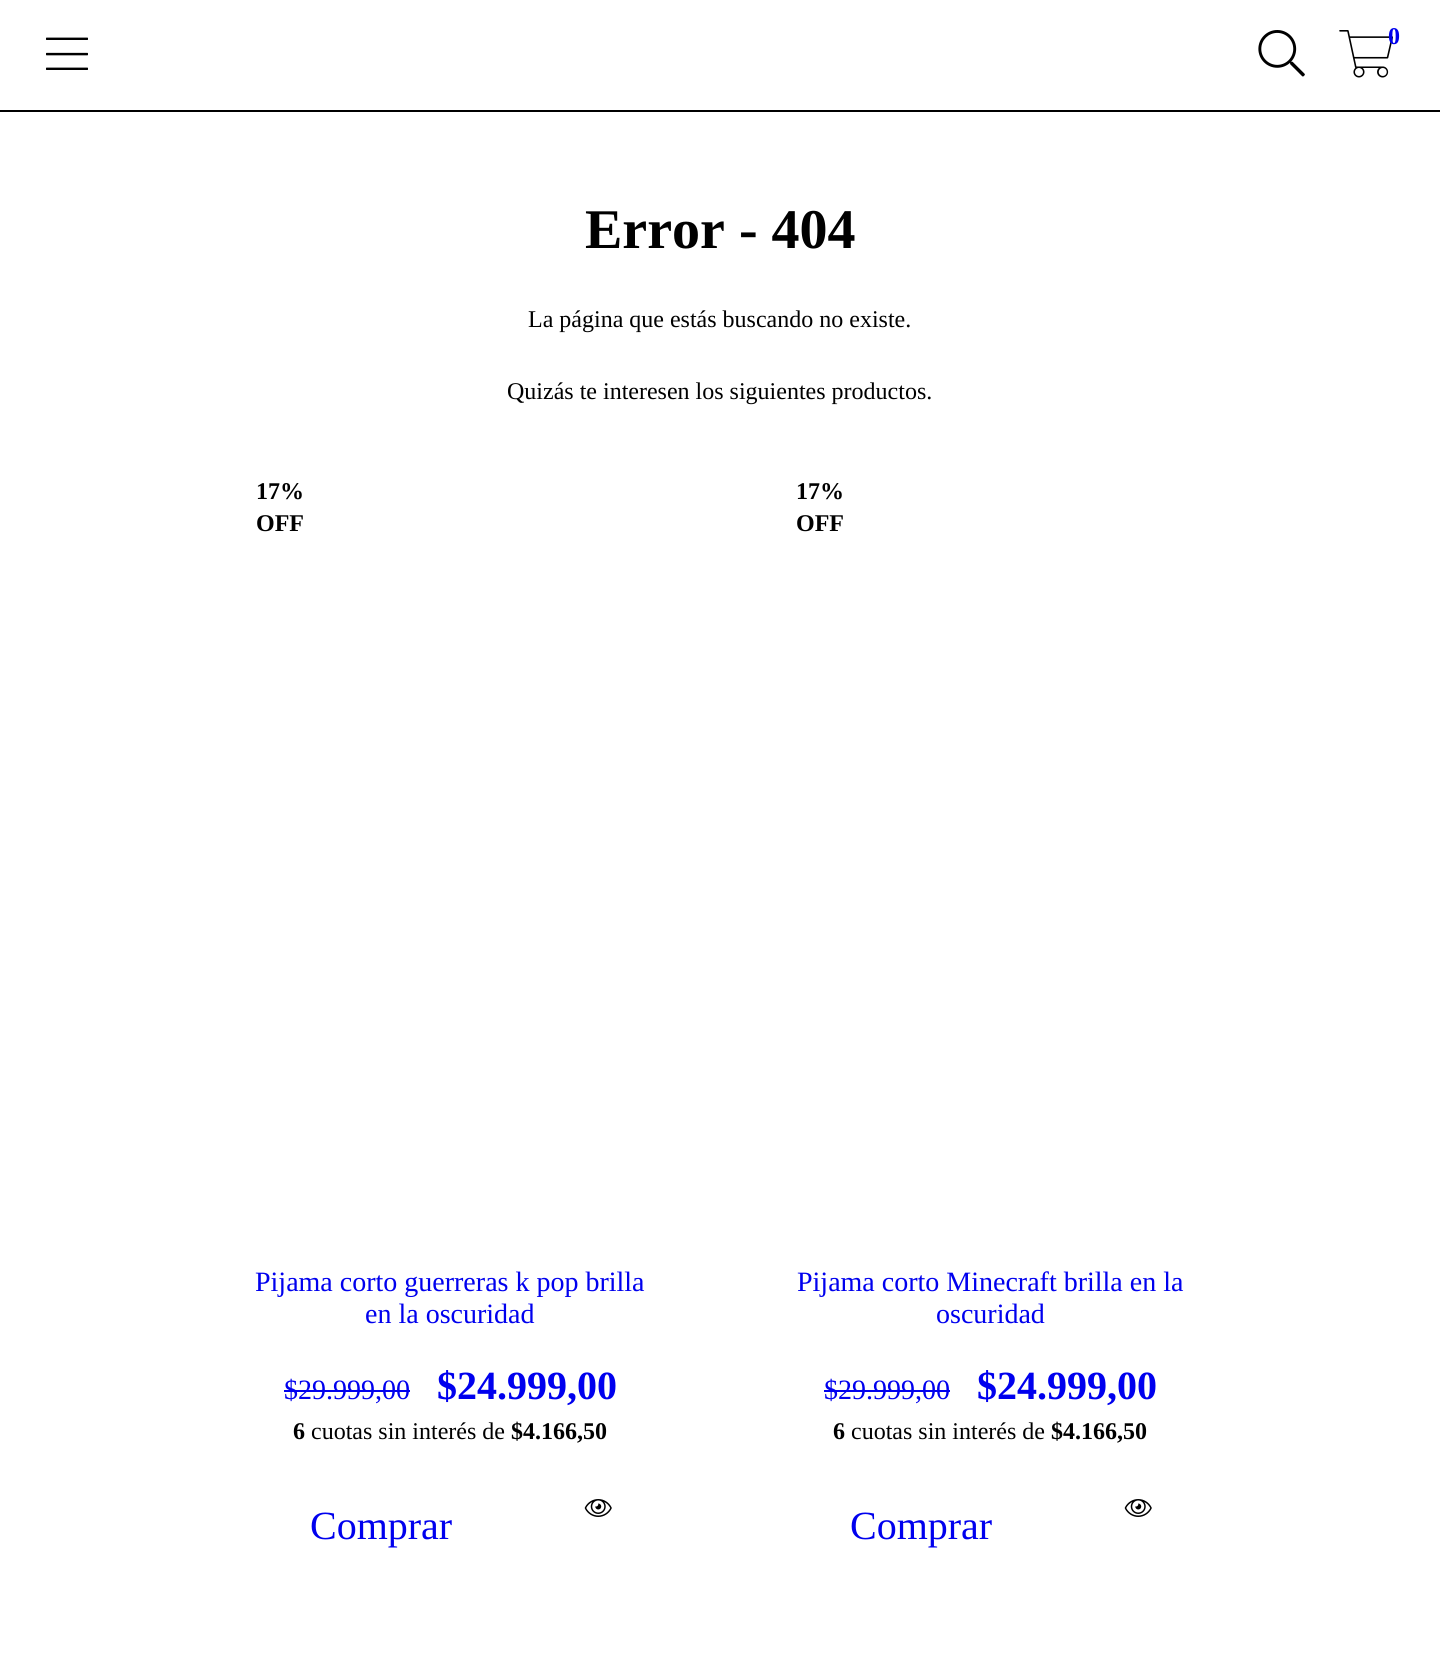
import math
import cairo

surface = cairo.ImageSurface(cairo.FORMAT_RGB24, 1440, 1659)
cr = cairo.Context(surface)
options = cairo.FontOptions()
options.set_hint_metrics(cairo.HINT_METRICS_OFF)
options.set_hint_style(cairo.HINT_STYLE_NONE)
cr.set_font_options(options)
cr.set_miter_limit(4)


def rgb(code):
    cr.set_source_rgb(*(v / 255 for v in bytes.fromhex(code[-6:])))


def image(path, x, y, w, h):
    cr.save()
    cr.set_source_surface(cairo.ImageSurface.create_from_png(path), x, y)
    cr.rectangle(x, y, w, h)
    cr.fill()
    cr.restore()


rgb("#ffffff")
cr.paint()
image("img/1.png", 46, 37, 42, 33)
image("img/2.png", 1258, 30, 47, 47)
image("img/3.png", 1339, 30, 54, 48)
rgb("#000000")
cr.rectangle(0, 110, 1440, 2)
cr.fill()
rgb("#0000ee")
cr.rectangle(284, 1390, 126, 2)
cr.fill()
image("img/4.png", 584, 1499, 28, 18)
cr.rectangle(824, 1390, 126, 2)
cr.fill()
image("img/4.png", 1124, 1499, 28, 18)
cr.select_font_face("Liberation Serif", cairo.FONT_SLANT_NORMAL, cairo.FONT_WEIGHT_BOLD)
cr.set_font_size(24)
cr.move_to(1388, 44)
cr.show_text("0")
cr.set_font_size(56)
rgb("#000000")
cr.move_to(585, 248)
cr.show_text("Error - 404")
cr.select_font_face("Liberation Serif")
cr.set_font_size(24)
cr.move_to(528, 327)
cr.show_text("La página que estás buscando no existe.")
cr.move_to(507, 399)
cr.show_text("Quizás te interesen los siguientes productos.")
cr.select_font_face("Liberation Serif", cairo.FONT_SLANT_NORMAL, cairo.FONT_WEIGHT_BOLD)
cr.move_to(256, 499)
cr.show_text("17%")
cr.move_to(256, 531)
cr.show_text("OFF")
cr.select_font_face("Liberation Serif")
cr.set_font_size(28)
rgb("#0000ee")
for x, y, s in [
    (255, 1291, "Pijama corto guerreras k pop brilla"),
    (365, 1323, "en la oscuridad"),
    (284, 1399, "$29.999,00"),
]:
    cr.move_to(x, y)
    cr.show_text(s)
cr.select_font_face("Liberation Serif", cairo.FONT_SLANT_NORMAL, cairo.FONT_WEIGHT_BOLD)
cr.set_font_size(40)
cr.move_to(437, 1399)
cr.show_text("$24.999,00")
cr.set_font_size(24)
rgb("#000000")
cr.move_to(293, 1439)
cr.show_text("6")
cr.select_font_face("Liberation Serif")
cr.move_to(311, 1439)
cr.show_text("cuotas sin interés de")
cr.select_font_face("Liberation Serif", cairo.FONT_SLANT_NORMAL, cairo.FONT_WEIGHT_BOLD)
cr.move_to(511, 1439)
cr.show_text("$4.166,50")
cr.select_font_face("Liberation Serif")
cr.set_font_size(40)
rgb("#0000ee")
cr.move_to(310, 1539)
cr.show_text("Comprar")
cr.select_font_face("Liberation Serif", cairo.FONT_SLANT_NORMAL, cairo.FONT_WEIGHT_BOLD)
cr.set_font_size(24)
rgb("#000000")
cr.move_to(796, 499)
cr.show_text("17%")
cr.move_to(796, 531)
cr.show_text("OFF")
cr.select_font_face("Liberation Serif")
cr.set_font_size(28)
rgb("#0000ee")
for x, y, s in [
    (797, 1291, "Pijama corto Minecraft brilla en la"),
    (936, 1323, "oscuridad"),
    (824, 1399, "$29.999,00"),
]:
    cr.move_to(x, y)
    cr.show_text(s)
cr.select_font_face("Liberation Serif", cairo.FONT_SLANT_NORMAL, cairo.FONT_WEIGHT_BOLD)
cr.set_font_size(40)
cr.move_to(977, 1399)
cr.show_text("$24.999,00")
cr.set_font_size(24)
rgb("#000000")
cr.move_to(833, 1439)
cr.show_text("6")
cr.select_font_face("Liberation Serif")
cr.move_to(851, 1439)
cr.show_text("cuotas sin interés de")
cr.select_font_face("Liberation Serif", cairo.FONT_SLANT_NORMAL, cairo.FONT_WEIGHT_BOLD)
cr.move_to(1051, 1439)
cr.show_text("$4.166,50")
cr.select_font_face("Liberation Serif")
cr.set_font_size(40)
rgb("#0000ee")
cr.move_to(850, 1539)
cr.show_text("Comprar")
surface.write_to_png("page.png")
